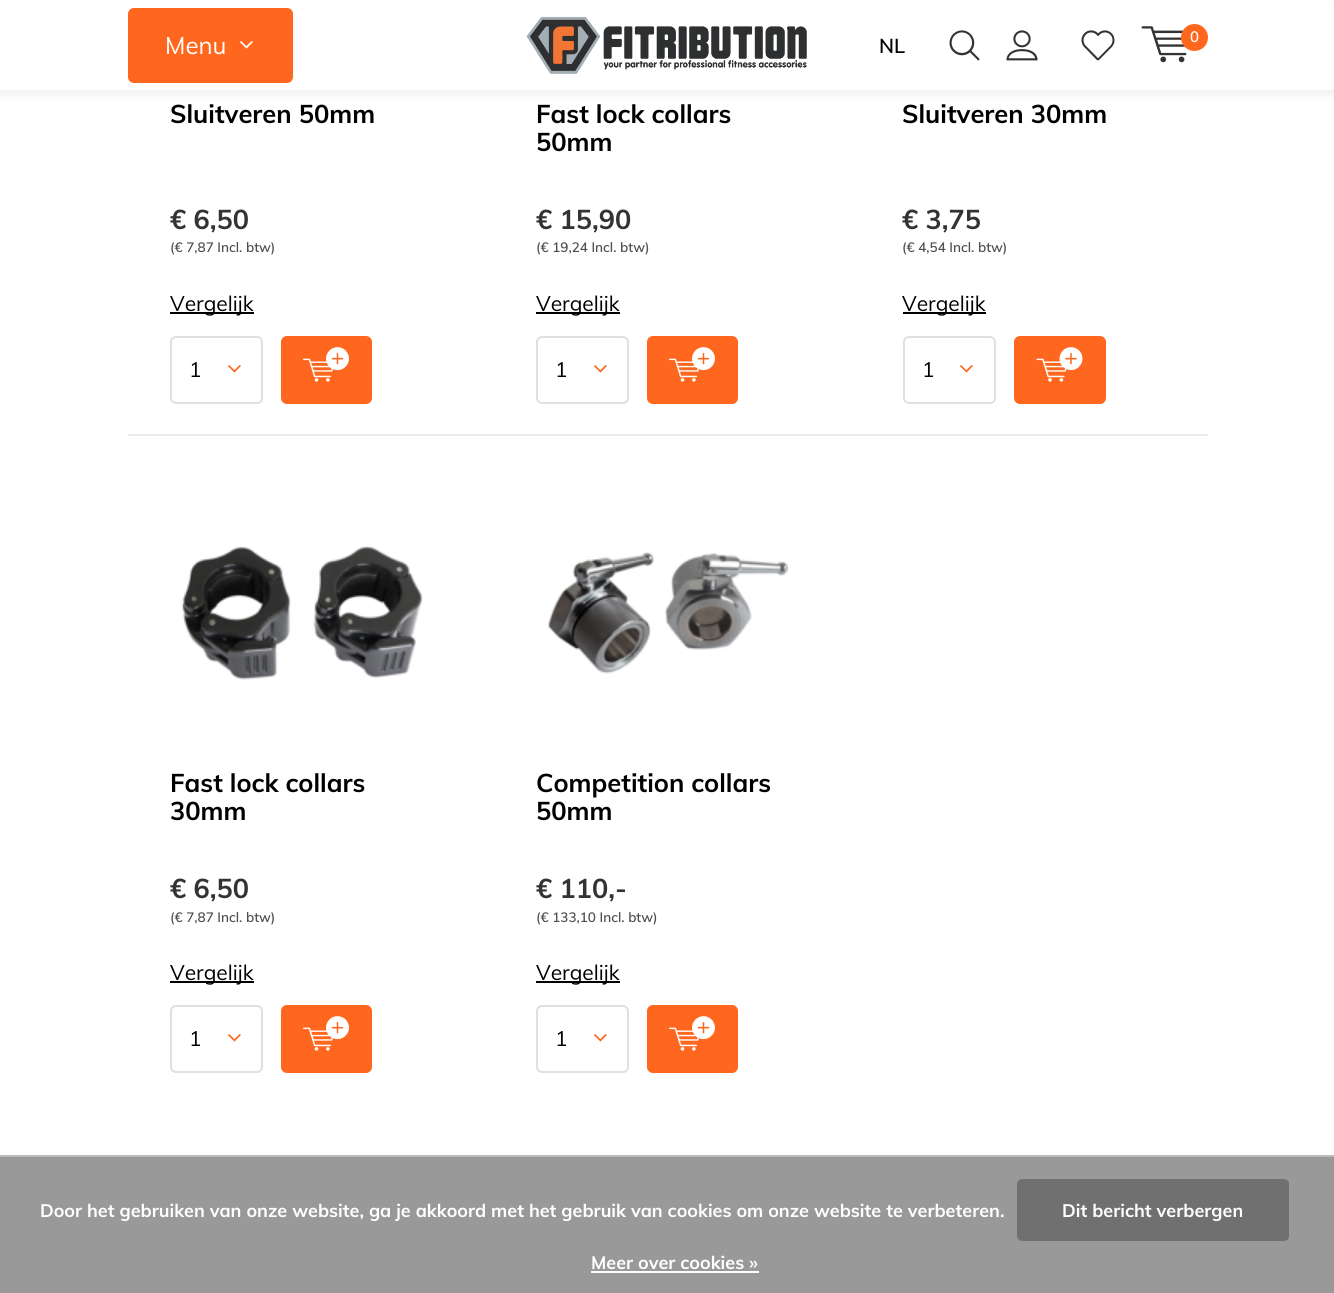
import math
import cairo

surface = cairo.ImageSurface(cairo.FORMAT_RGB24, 1334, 1293)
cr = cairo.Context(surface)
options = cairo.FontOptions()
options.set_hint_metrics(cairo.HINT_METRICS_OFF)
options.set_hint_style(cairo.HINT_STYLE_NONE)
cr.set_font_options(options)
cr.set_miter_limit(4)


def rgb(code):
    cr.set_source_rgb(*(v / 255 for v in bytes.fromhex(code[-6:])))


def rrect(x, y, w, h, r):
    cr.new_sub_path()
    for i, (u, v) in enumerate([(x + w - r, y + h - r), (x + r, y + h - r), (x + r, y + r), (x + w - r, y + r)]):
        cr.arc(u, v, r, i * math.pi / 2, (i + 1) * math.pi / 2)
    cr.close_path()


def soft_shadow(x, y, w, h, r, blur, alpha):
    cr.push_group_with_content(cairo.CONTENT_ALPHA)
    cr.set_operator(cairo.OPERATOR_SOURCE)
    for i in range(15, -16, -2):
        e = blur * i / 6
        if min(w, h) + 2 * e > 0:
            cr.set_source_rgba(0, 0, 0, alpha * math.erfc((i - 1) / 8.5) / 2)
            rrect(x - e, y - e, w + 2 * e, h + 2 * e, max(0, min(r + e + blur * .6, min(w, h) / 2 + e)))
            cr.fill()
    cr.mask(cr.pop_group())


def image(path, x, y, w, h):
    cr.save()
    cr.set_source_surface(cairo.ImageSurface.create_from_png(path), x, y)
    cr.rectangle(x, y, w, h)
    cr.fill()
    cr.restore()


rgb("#ffffff")
cr.paint()
rgb("#000000")
soft_shadow(-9, 6, 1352, 90, 0, 3, 0.05)
rgb("#ffffff")
cr.rectangle(0, 3, 1334, 87)
cr.fill()
image("img/1.png", 526, 16, 281, 58)
rgb("#ff671f")
rrect(128, 8, 165, 75, 6)
cr.fill()
image("img/2.png", 240, 41, 13, 8)
image("img/3.png", 949, 30, 31, 31)
image("img/4.png", 1006, 30, 32, 31)
image("img/5.png", 1081, 30, 34, 31)
image("img/6.png", 1141, 26, 46, 37)
cr.arc(1194.5, 37.5, 13.5, 0, 2 * math.pi)
cr.fill()
rgb("#000000")
cr.rectangle(170, 312, 84, 2)
cr.fill()
image("img/7.png", 228, 365, 13, 8)
rrect(171, 337, 91, 66, 5)
rgb("#e0e0e0")
cr.stroke()
rgb("#ff671f")
rrect(282, 337, 89, 66, 5)
cr.fill_preserve()
cr.stroke()
image("img/8.png", 303, 347, 46, 35)
rgb("#000000")
cr.rectangle(536, 312, 84, 2)
cr.fill()
image("img/7.png", 594, 365, 13, 8)
rrect(537, 337, 91, 66, 5)
rgb("#e0e0e0")
cr.stroke()
rgb("#ff671f")
rrect(648, 337, 89, 66, 5)
cr.fill_preserve()
cr.stroke()
image("img/8.png", 669, 347, 46, 35)
rgb("#000000")
cr.rectangle(903, 312, 83, 2)
cr.fill()
image("img/7.png", 960, 365, 13, 8)
rrect(904, 337, 91, 66, 5)
rgb("#e0e0e0")
cr.stroke()
rgb("#ff671f")
rrect(1015, 337, 90, 66, 5)
cr.fill_preserve()
cr.stroke()
image("img/9.png", 1036, 347, 47, 35)
rgb("#ebebeb")
cr.rectangle(128, 434, 1080, 2)
cr.fill()
image("img/10.png", 181, 546, 242, 134)
rgb("#000000")
cr.rectangle(170, 981, 84, 2)
cr.fill()
image("img/7.png", 228, 1034, 13, 8)
rrect(171, 1006, 91, 66, 5)
rgb("#e0e0e0")
cr.stroke()
rgb("#ff671f")
rrect(282, 1006, 89, 66, 5)
cr.fill_preserve()
cr.stroke()
image("img/8.png", 303, 1016, 46, 35)
image("img/11.png", 547, 552, 242, 122)
rgb("#000000")
cr.rectangle(536, 981, 84, 2)
cr.fill()
image("img/7.png", 594, 1034, 13, 8)
rrect(537, 1006, 91, 66, 5)
rgb("#e0e0e0")
cr.stroke()
rgb("#ff671f")
rrect(648, 1006, 89, 66, 5)
cr.fill_preserve()
cr.stroke()
image("img/8.png", 669, 1016, 46, 35)
rgb("#999999")
cr.rectangle(0, 1157, 1334, 136)
cr.fill()
rgb("#bbbbbb")
cr.rectangle(0, 1155, 1334, 2)
cr.fill()
rgb("#707070")
rrect(1017, 1179, 272, 62, 5)
cr.fill()
rgb("#ffffff")
cr.rectangle(591, 1271, 168, 2)
cr.fill()
cr.select_font_face("Muli")
cr.set_font_size(24)
cr.move_to(165, 54)
cr.show_text("Menu")
cr.select_font_face("Muli SemiBold")
cr.set_font_size(15)
cr.move_to(1190, 42)
cr.show_text("0")
cr.set_font_size(20)
rgb("#000000")
cr.move_to(879, 53)
cr.show_text("NL")
cr.select_font_face("Muli", cairo.FONT_SLANT_NORMAL, cairo.FONT_WEIGHT_BOLD)
cr.set_font_size(25.5)
cr.move_to(170, 123)
cr.show_text("Sluitveren 50mm")
cr.set_font_size(27)
rgb("#333333")
cr.move_to(170, 229)
cr.show_text("€ 6,50")
cr.select_font_face("Muli SemiBold")
cr.set_font_size(13.5)
rgb("#4f4f4f")
cr.move_to(170, 252)
cr.show_text("(€ 7,87 Incl. btw)")
cr.select_font_face("Muli")
cr.set_font_size(21)
rgb("#000000")
cr.move_to(170, 311)
cr.show_text("Vergelijk")
cr.move_to(189, 377)
cr.show_text("1")
cr.select_font_face("Muli", cairo.FONT_SLANT_NORMAL, cairo.FONT_WEIGHT_BOLD)
cr.set_font_size(25.5)
cr.move_to(536, 123)
cr.show_text("Fast lock collars")
cr.move_to(536, 151)
cr.show_text("50mm")
cr.set_font_size(27)
rgb("#333333")
cr.move_to(536, 229)
cr.show_text("€ 15,90")
cr.select_font_face("Muli SemiBold")
cr.set_font_size(13.5)
rgb("#4f4f4f")
cr.move_to(536, 252)
cr.show_text("(€ 19,24 Incl. btw)")
cr.select_font_face("Muli")
cr.set_font_size(21)
rgb("#000000")
cr.move_to(536, 311)
cr.show_text("Vergelijk")
cr.move_to(555, 377)
cr.show_text("1")
cr.select_font_face("Muli", cairo.FONT_SLANT_NORMAL, cairo.FONT_WEIGHT_BOLD)
cr.set_font_size(25.5)
cr.move_to(902, 123)
cr.show_text("Sluitveren 30mm")
cr.set_font_size(27)
rgb("#333333")
cr.move_to(902, 229)
cr.show_text("€ 3,75")
cr.select_font_face("Muli SemiBold")
cr.set_font_size(13.5)
rgb("#4f4f4f")
cr.move_to(902, 252)
cr.show_text("(€ 4,54 Incl. btw)")
cr.select_font_face("Muli")
cr.set_font_size(21)
rgb("#000000")
cr.move_to(902, 311)
cr.show_text("Vergelijk")
cr.move_to(922, 377)
cr.show_text("1")
cr.select_font_face("Muli", cairo.FONT_SLANT_NORMAL, cairo.FONT_WEIGHT_BOLD)
cr.set_font_size(25.5)
cr.move_to(170, 792)
cr.show_text("Fast lock collars")
cr.move_to(170, 820)
cr.show_text("30mm")
cr.set_font_size(27)
rgb("#333333")
cr.move_to(170, 898)
cr.show_text("€ 6,50")
cr.select_font_face("Muli SemiBold")
cr.set_font_size(13.5)
rgb("#4f4f4f")
cr.move_to(170, 922)
cr.show_text("(€ 7,87 Incl. btw)")
cr.select_font_face("Muli")
cr.set_font_size(21)
rgb("#000000")
cr.move_to(170, 980)
cr.show_text("Vergelijk")
cr.move_to(189, 1046)
cr.show_text("1")
cr.select_font_face("Muli", cairo.FONT_SLANT_NORMAL, cairo.FONT_WEIGHT_BOLD)
cr.set_font_size(25.5)
cr.move_to(536, 792)
cr.show_text("Competition collars")
cr.move_to(536, 820)
cr.show_text("50mm")
cr.set_font_size(27)
rgb("#333333")
cr.move_to(536, 898)
cr.show_text("€ 110,-")
cr.select_font_face("Muli SemiBold")
cr.set_font_size(13.5)
rgb("#4f4f4f")
cr.move_to(536, 922)
cr.show_text("(€ 133,10 Incl. btw)")
cr.select_font_face("Muli")
cr.set_font_size(21)
rgb("#000000")
cr.move_to(536, 980)
cr.show_text("Vergelijk")
cr.move_to(555, 1046)
cr.show_text("1")
cr.select_font_face("Muli", cairo.FONT_SLANT_NORMAL, cairo.FONT_WEIGHT_BOLD)
cr.set_font_size(18)
rgb("#ffffff")
for x, y, s in [
    (40, 1217, "Door het gebruiken van onze website, ga je akkoord met het gebruik van cookies om onze website te verbeteren."),
    (1062, 1217, "Dit bericht verbergen"),
    (591, 1269, "Meer over cookies »"),
]:
    cr.move_to(x, y)
    cr.show_text(s)
surface.write_to_png("page.png")
